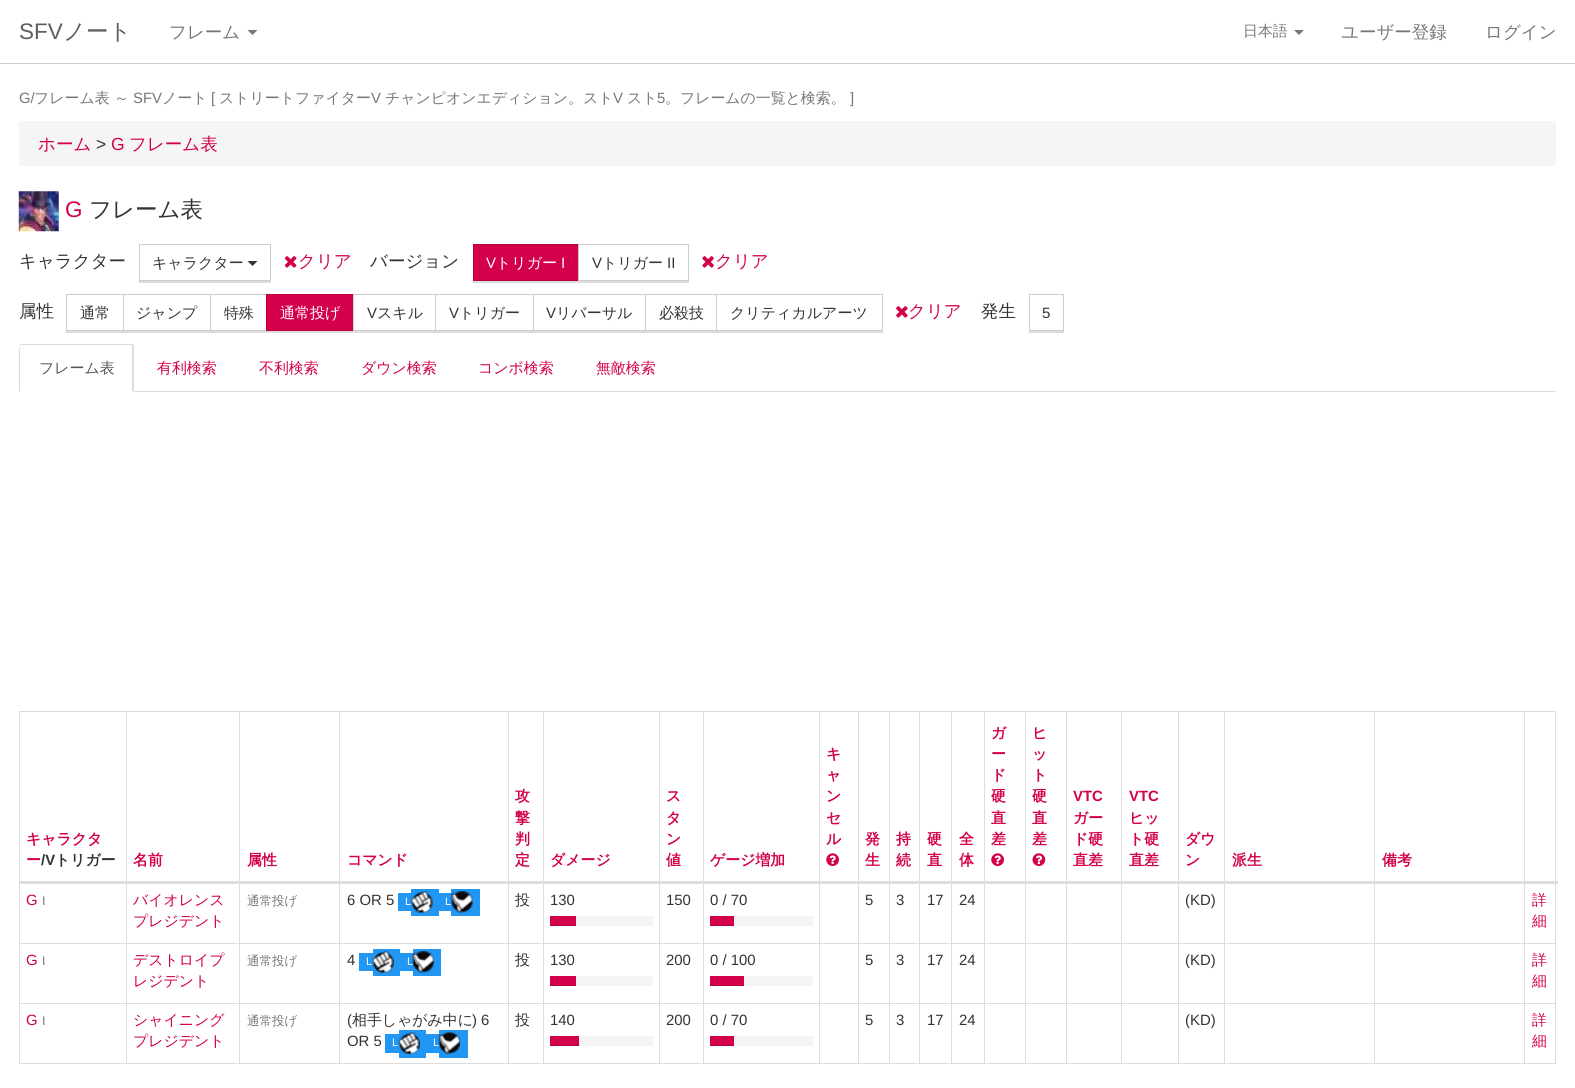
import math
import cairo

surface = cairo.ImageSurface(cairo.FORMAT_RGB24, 1575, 1088)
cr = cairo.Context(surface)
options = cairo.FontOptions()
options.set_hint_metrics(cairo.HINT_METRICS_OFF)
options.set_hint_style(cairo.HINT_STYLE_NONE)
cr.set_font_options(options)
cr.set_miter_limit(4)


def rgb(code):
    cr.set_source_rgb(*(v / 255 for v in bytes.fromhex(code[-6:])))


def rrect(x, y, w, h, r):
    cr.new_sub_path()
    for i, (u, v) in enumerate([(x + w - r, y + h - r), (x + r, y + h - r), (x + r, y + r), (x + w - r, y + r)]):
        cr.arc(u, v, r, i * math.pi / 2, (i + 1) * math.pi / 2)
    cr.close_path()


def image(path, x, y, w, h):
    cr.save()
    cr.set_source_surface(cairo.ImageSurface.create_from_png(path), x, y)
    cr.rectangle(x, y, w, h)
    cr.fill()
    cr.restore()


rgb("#ffffff")
cr.paint()
rgb("#cccccc")
cr.rectangle(0, 63, 1575, 1)
cr.fill()
rgb("#777777")
cr.new_path()
cr.move_to(247.5, 30)
cr.line_to(257.5, 30)
cr.line_to(252.5, 35)
cr.close_path()
cr.fill()
cr.new_path()
cr.move_to(1294, 30)
cr.line_to(1304, 30)
cr.line_to(1299, 35)
cr.close_path()
cr.fill()
rgb("#f5f5f5")
rrect(19, 121, 1537, 45, 2.5)
cr.fill()
image("img/1.png", 18, 191, 41, 41)
rgb("#dddddd")
cr.rectangle(139, 281, 132, 2)
cr.fill()
cr.rectangle(139.5, 244.5, 131, 36)
rgb("#cccccc")
cr.set_line_width(1)
cr.stroke()
rgb("#333333")
cr.new_path()
cr.move_to(247.5, 261)
cr.line_to(257.5, 261)
cr.line_to(252.5, 266)
cr.close_path()
cr.fill()
image("img/2.png", 284, 256, 13, 12)
rgb("#dddddd")
cr.new_path()
cr.move_to(473, 281)
cr.line_to(473, 283)
cr.line_to(579, 283)
cr.line_to(579, 245)
cr.line_to(579, 281)
cr.close_path()
cr.fill()
rgb("#d4004b")
cr.rectangle(473.5, 244.5, 105, 36)
cr.fill_preserve()
rgb("#ba0042")
cr.stroke()
rgb("#dddddd")
cr.new_path()
cr.move_to(578, 281)
cr.line_to(578, 283)
cr.line_to(689, 283)
cr.line_to(689, 245)
cr.line_to(689, 281)
cr.close_path()
cr.fill()
cr.rectangle(578.5, 244.5, 110, 36)
rgb("#cccccc")
cr.stroke()
image("img/3.png", 702, 256, 12, 12)
rgb("#dddddd")
cr.new_path()
cr.move_to(66, 295)
cr.line_to(66, 333)
cr.line_to(124, 333)
cr.line_to(124, 295)
cr.line_to(124, 331)
cr.line_to(66, 331)
cr.close_path()
cr.fill()
cr.rectangle(66.5, 294.5, 57, 36)
rgb("#cccccc")
cr.stroke()
rgb("#dddddd")
cr.rectangle(123, 331, 88, 2)
cr.fill()
cr.rectangle(123.5, 294.5, 87, 36)
rgb("#cccccc")
cr.stroke()
rgb("#dddddd")
cr.new_path()
cr.move_to(210, 331)
cr.line_to(210, 333)
cr.line_to(268, 333)
cr.line_to(268, 295)
cr.line_to(268, 331)
cr.close_path()
cr.fill()
cr.rectangle(210.5, 294.5, 57, 36)
rgb("#cccccc")
cr.stroke()
rgb("#dddddd")
cr.new_path()
cr.move_to(266, 295)
cr.line_to(266, 333)
cr.line_to(354, 333)
cr.line_to(354, 295)
cr.line_to(354, 331)
cr.line_to(266, 331)
cr.close_path()
cr.fill()
rgb("#d4004b")
cr.rectangle(266.5, 294.5, 87, 36)
cr.fill_preserve()
rgb("#ba0042")
cr.stroke()
rgb("#dddddd")
cr.rectangle(353, 331, 83, 2)
cr.fill()
cr.rectangle(353.5, 294.5, 82, 36)
rgb("#cccccc")
cr.stroke()
rgb("#dddddd")
cr.new_path()
cr.move_to(435, 331)
cr.line_to(435, 333)
cr.line_to(534, 333)
cr.line_to(534, 295)
cr.line_to(534, 331)
cr.close_path()
cr.fill()
cr.rectangle(435.5, 294.5, 98, 36)
rgb("#cccccc")
cr.stroke()
rgb("#dddddd")
cr.rectangle(533, 331, 113, 2)
cr.fill()
cr.rectangle(533.5, 294.5, 112, 36)
rgb("#cccccc")
cr.stroke()
rgb("#dddddd")
cr.new_path()
cr.move_to(645, 331)
cr.line_to(645, 333)
cr.line_to(718, 333)
cr.line_to(718, 295)
cr.line_to(718, 331)
cr.close_path()
cr.fill()
cr.rectangle(645.5, 294.5, 72, 36)
rgb("#cccccc")
cr.stroke()
rgb("#dddddd")
cr.new_path()
cr.move_to(716, 295)
cr.line_to(716, 333)
cr.line_to(883, 333)
cr.line_to(883, 295)
cr.line_to(882, 295)
cr.line_to(882, 331)
cr.line_to(716, 331)
cr.close_path()
cr.fill()
rgb("#ffffff")
cr.rectangle(717, 295, 1, 35)
cr.fill()
cr.rectangle(716.5, 294.5, 166, 36)
rgb("#cccccc")
cr.stroke()
image("img/4.png", 896, 306, 12, 12)
rgb("#dddddd")
cr.new_path()
cr.move_to(1029, 331)
cr.line_to(1029, 333)
cr.line_to(1064, 333)
cr.line_to(1064, 295)
cr.line_to(1064, 331)
cr.close_path()
cr.fill()
cr.rectangle(1029.5, 294.5, 34, 36)
rgb("#cccccc")
cr.stroke()
rgb("#dddddd")
cr.rectangle(134, 391, 1422, 1)
cr.fill()
cr.new_path()
cr.move_to(21, 344)
cr.line_to(20, 345)
cr.line_to(20, 346)
cr.line_to(21, 345)
cr.line_to(131, 345)
cr.line_to(132, 346)
cr.line_to(133, 344)
cr.line_to(131, 344)
cr.close_path()
cr.fill()
cr.new_path()
cr.move_to(134, 392)
cr.line_to(132, 391)
cr.line_to(132, 346)
cr.line_to(133, 344)
cr.line_to(134, 345)
cr.close_path()
cr.fill()
cr.new_path()
cr.move_to(20, 345)
cr.curve_to(18, 346, 19, 387, 19, 392)
cr.line_to(20, 391)
cr.line_to(20, 346)
cr.close_path()
cr.fill()
for x, y, w, h, color in [
    (19, 711, 1537, 1, "#dddddd"),
    (1555, 711, 1, 353, "#dddddd"),
    (19, 1063, 1537, 1, "#dddddd"),
    (19, 711, 1, 353, "#dddddd"),
]:
    rgb(color)
    cr.rectangle(x, y, w, h)
    cr.fill()
image("img/5.png", 826, 853, 13, 14)
image("img/5.png", 991, 853, 13, 14)
image("img/6.png", 1032, 853, 14, 14)
for x, y, w, h, color in [
    (1524, 943, 32, 1, "#dddddd"),
    (1524, 1003, 32, 1, "#dddddd"),
    (1524, 1003, 1, 61, "#dddddd"),
    (1374, 1003, 151, 1, "#dddddd"),
    (1524, 943, 1, 61, "#dddddd"),
    (1374, 943, 151, 1, "#dddddd"),
    (1374, 1003, 1, 61, "#dddddd"),
    (1224, 1003, 151, 1, "#dddddd"),
    (1374, 943, 1, 61, "#dddddd"),
    (1224, 943, 151, 1, "#dddddd"),
    (1224, 1003, 1, 61, "#dddddd"),
    (1178, 1003, 47, 1, "#dddddd"),
    (1224, 943, 1, 61, "#dddddd"),
    (1178, 943, 47, 1, "#dddddd"),
    (1178, 1003, 1, 61, "#dddddd"),
    (1121, 1003, 58, 1, "#dddddd"),
    (1178, 943, 1, 61, "#dddddd"),
    (1121, 943, 58, 1, "#dddddd"),
    (1121, 1003, 1, 61, "#dddddd"),
    (1066, 1003, 57, 1, "#dddddd"),
    (1121, 943, 1, 61, "#dddddd"),
    (1066, 943, 57, 1, "#dddddd"),
    (1066, 1003, 1, 61, "#dddddd"),
    (1025, 1003, 43, 1, "#dddddd"),
    (1066, 943, 1, 61, "#dddddd"),
    (1025, 943, 43, 1, "#dddddd"),
    (1025, 1003, 1, 61, "#dddddd"),
    (984, 1003, 42, 1, "#dddddd"),
    (1025, 943, 1, 61, "#dddddd"),
    (984, 943, 42, 1, "#dddddd"),
    (984, 1003, 1, 61, "#dddddd"),
    (951, 1003, 34, 1, "#dddddd"),
    (984, 943, 1, 61, "#dddddd"),
    (951, 943, 34, 1, "#dddddd"),
    (951, 1003, 1, 61, "#dddddd"),
    (919, 1003, 34, 1, "#dddddd"),
    (951, 943, 1, 61, "#dddddd"),
    (919, 943, 34, 1, "#dddddd"),
    (919, 1003, 1, 61, "#dddddd"),
    (889, 1003, 31, 1, "#dddddd"),
    (919, 943, 1, 61, "#dddddd"),
    (889, 943, 31, 1, "#dddddd"),
    (889, 1003, 1, 61, "#dddddd"),
    (858, 1003, 32, 1, "#dddddd"),
    (889, 943, 1, 61, "#dddddd"),
    (858, 943, 32, 1, "#dddddd"),
    (858, 1003, 1, 61, "#dddddd"),
    (819, 1003, 40, 1, "#dddddd"),
    (858, 943, 1, 61, "#dddddd"),
    (819, 943, 40, 1, "#dddddd"),
    (819, 1003, 1, 61, "#dddddd"),
    (703, 1003, 117, 1, "#dddddd"),
    (819, 943, 1, 61, "#dddddd"),
    (703, 943, 117, 1, "#dddddd"),
    (703, 1003, 1, 61, "#dddddd"),
    (659, 1003, 45, 1, "#dddddd"),
    (703, 943, 1, 61, "#dddddd"),
    (659, 943, 45, 1, "#dddddd"),
    (659, 1003, 1, 61, "#dddddd"),
    (543, 1003, 117, 1, "#dddddd"),
    (659, 943, 1, 61, "#dddddd"),
    (543, 943, 117, 1, "#dddddd"),
    (543, 1003, 1, 61, "#dddddd"),
    (508, 1003, 36, 1, "#dddddd"),
    (543, 943, 1, 61, "#dddddd"),
    (508, 943, 36, 1, "#dddddd"),
    (508, 1003, 1, 61, "#dddddd"),
    (339, 1003, 170, 1, "#dddddd"),
    (508, 943, 1, 61, "#dddddd"),
    (339, 943, 170, 1, "#dddddd"),
    (339, 1003, 1, 61, "#dddddd"),
    (239, 1003, 101, 1, "#dddddd"),
    (339, 943, 1, 61, "#dddddd"),
    (239, 943, 101, 1, "#dddddd"),
    (239, 1003, 1, 61, "#dddddd"),
    (126, 1003, 114, 1, "#dddddd"),
    (239, 943, 1, 61, "#dddddd"),
    (126, 943, 114, 1, "#dddddd"),
    (126, 1003, 1, 61, "#dddddd"),
    (19, 1003, 109, 1, "#dddddd"),
    (126, 943, 1, 61, "#dddddd"),
    (19, 943, 109, 1, "#dddddd"),
    (126, 711, 1, 233, "#dddddd"),
    (239, 711, 1, 233, "#dddddd"),
    (339, 711, 1, 233, "#dddddd"),
    (508, 711, 1, 233, "#dddddd"),
    (543, 711, 1, 233, "#dddddd"),
    (659, 711, 1, 233, "#dddddd"),
    (703, 711, 1, 233, "#dddddd"),
    (819, 711, 1, 233, "#dddddd"),
    (858, 711, 1, 233, "#dddddd"),
    (889, 711, 1, 233, "#dddddd"),
    (919, 711, 1, 233, "#dddddd"),
    (951, 711, 1, 233, "#dddddd"),
    (984, 711, 1, 233, "#dddddd"),
    (1025, 711, 1, 233, "#dddddd"),
    (1066, 711, 1, 233, "#dddddd"),
    (1121, 711, 1, 233, "#dddddd"),
    (1178, 711, 1, 233, "#dddddd"),
    (1224, 711, 1, 233, "#dddddd"),
    (1374, 711, 1, 233, "#dddddd"),
    (1524, 711, 1, 233, "#dddddd"),
    (19, 881, 1539, 3, "#dddddd"),
    (398, 893, 13, 18, "#2196f3"),
    (411, 889, 28, 27, "#2196f3"),
]:
    rgb(color)
    cr.rectangle(x, y, w, h)
    cr.fill()
image("img/7.png", 411, 891, 22, 22)
for x, y, w, h, color in [
    (439, 893, 12, 18, "#2196f3"),
    (451, 889, 29, 27, "#2196f3"),
    (576, 916, 77, 10, "#f5f5f5"),
    (550, 916, 26, 9, "#d4004b"),
    (550, 925, 26, 1, "#b40040"),
    (734, 916, 79, 10, "#f5f5f5"),
    (710, 916, 24, 9, "#d4004b"),
    (710, 925, 24, 1, "#b40040"),
    (359, 953, 14, 18, "#2196f3"),
    (373, 949, 27, 27, "#2196f3"),
]:
    rgb(color)
    cr.rectangle(x, y, w, h)
    cr.fill()
image("img/9.png", 372, 951, 22, 22)
for x, y, w, h, color in [
    (400, 953, 13, 18, "#2196f3"),
    (413, 949, 28, 27, "#2196f3"),
    (576, 976, 77, 10, "#f5f5f5"),
    (550, 976, 26, 9, "#d4004b"),
    (550, 985, 26, 1, "#b40040"),
    (744, 976, 69, 10, "#f5f5f5"),
    (710, 976, 34, 9, "#d4004b"),
    (710, 985, 34, 1, "#b40040"),
    (385, 1034, 14, 19, "#2196f3"),
    (399, 1030, 27, 28, "#2196f3"),
    (426, 1034, 13, 19, "#2196f3"),
    (439, 1030, 29, 28, "#2196f3"),
    (579, 1036, 74, 10, "#f5f5f5"),
    (550, 1036, 29, 9, "#d4004b"),
    (550, 1045, 29, 1, "#b40040"),
    (734, 1036, 79, 10, "#f5f5f5"),
    (710, 1036, 24, 9, "#d4004b"),
    (710, 1045, 24, 1, "#b40040"),
]:
    rgb(color)
    cr.rectangle(x, y, w, h)
    cr.fill()
cr.select_font_face("Liberation Sans")
cr.set_font_size(22.5)
rgb("#5e5e5e")
cr.move_to(19, 39)
cr.show_text("SFV")
cr.select_font_face("WenQuanYi Zen Hei Medium")
cr.move_to(63, 39)
cr.show_text("ノート")
cr.set_font_size(17.5)
rgb("#777777")
cr.move_to(169, 38)
cr.show_text("フレーム")
cr.set_font_size(14.9)
cr.move_to(1243, 36)
cr.show_text("日本語")
cr.set_font_size(17.5)
cr.move_to(1341, 38)
cr.show_text("ユーザー登録")
cr.move_to(1485, 38)
cr.show_text("ログイン")
cr.select_font_face("Liberation Sans")
cr.set_font_size(14.9)
cr.move_to(19, 103)
cr.show_text("G/")
cr.select_font_face("WenQuanYi Zen Hei Medium")
cr.move_to(34, 103)
cr.show_text("フレーム表")
cr.move_to(114, 103)
cr.show_text("～")
cr.select_font_face("Liberation Sans")
cr.move_to(133, 103)
cr.show_text("SFV")
cr.select_font_face("WenQuanYi Zen Hei Medium")
cr.move_to(162, 103)
cr.show_text("ノート")
cr.select_font_face("Liberation Sans")
cr.move_to(211, 103)
cr.show_text("[")
cr.select_font_face("WenQuanYi Zen Hei Medium")
cr.move_to(219, 103)
cr.show_text("ストリートファイター")
cr.select_font_face("Liberation Sans")
cr.move_to(371, 103)
cr.show_text("V")
cr.select_font_face("WenQuanYi Zen Hei Medium")
cr.move_to(385, 103)
cr.show_text("チャンピオンエディション。スト")
cr.select_font_face("Liberation Sans")
cr.move_to(613, 103)
cr.show_text("V")
cr.select_font_face("WenQuanYi Zen Hei Medium")
cr.move_to(627, 103)
cr.show_text("スト")
cr.select_font_face("Liberation Sans")
cr.move_to(657, 103)
cr.show_text("5")
cr.select_font_face("WenQuanYi Zen Hei Medium")
cr.move_to(665, 103)
cr.show_text("。フレームの一覧と検索。")
cr.select_font_face("Liberation Sans")
cr.move_to(850, 103)
cr.show_text("]")
cr.select_font_face("WenQuanYi Zen Hei Medium")
cr.set_font_size(17.5)
rgb("#d4004b")
cr.move_to(38, 150)
cr.show_text("ホーム")
cr.select_font_face("Liberation Sans")
rgb("#333333")
cr.move_to(96, 150)
cr.show_text(">")
rgb("#d4004b")
cr.move_to(111, 150)
cr.show_text("G")
cr.select_font_face("WenQuanYi Zen Hei Medium")
cr.move_to(129, 150)
cr.show_text("フレーム表")
cr.select_font_face("Liberation Sans")
cr.set_font_size(22.5)
cr.move_to(65, 217)
cr.show_text("G")
cr.select_font_face("WenQuanYi Zen Hei Medium")
rgb("#333333")
cr.move_to(89, 217)
cr.show_text("フレーム表")
cr.set_font_size(17.5)
cr.move_to(19, 267)
cr.show_text("キャラクター")
cr.set_font_size(15)
cr.move_to(152, 268)
cr.show_text("キャラクター")
cr.set_font_size(17.5)
rgb("#d4004b")
cr.move_to(298, 267)
cr.show_text("クリア")
rgb("#333333")
cr.move_to(370, 267)
cr.show_text("バージョン")
cr.select_font_face("Liberation Sans")
cr.set_font_size(15)
rgb("#ffffff")
cr.move_to(486, 268)
cr.show_text("V")
cr.select_font_face("WenQuanYi Zen Hei Medium")
cr.move_to(496, 268)
cr.show_text("トリガー")
cr.select_font_face("Liberation Sans")
cr.move_to(561, 268)
cr.show_text("I")
rgb("#333333")
cr.move_to(592, 268)
cr.show_text("V")
cr.select_font_face("WenQuanYi Zen Hei Medium")
cr.move_to(602, 268)
cr.show_text("トリガー")
cr.select_font_face("Liberation Sans")
cr.move_to(667, 268)
cr.show_text("II")
cr.select_font_face("WenQuanYi Zen Hei Medium")
cr.set_font_size(17.5)
rgb("#d4004b")
cr.move_to(715, 267)
cr.show_text("クリア")
rgb("#333333")
cr.move_to(19, 317)
cr.show_text("属性")
cr.set_font_size(15)
for x, y, s in [
    (80, 318, "通常"),
    (136, 318, "ジャンプ"),
    (224, 318, "特殊"),
]:
    cr.move_to(x, y)
    cr.show_text(s)
rgb("#ffffff")
cr.move_to(280, 318)
cr.show_text("通常投げ")
cr.select_font_face("Liberation Sans")
rgb("#333333")
cr.move_to(367, 318)
cr.show_text("V")
cr.select_font_face("WenQuanYi Zen Hei Medium")
cr.move_to(377, 318)
cr.show_text("スキル")
cr.select_font_face("Liberation Sans")
cr.move_to(449, 318)
cr.show_text("V")
cr.select_font_face("WenQuanYi Zen Hei Medium")
cr.move_to(459, 318)
cr.show_text("トリガー")
cr.select_font_face("Liberation Sans")
cr.move_to(546, 318)
cr.show_text("V")
cr.select_font_face("WenQuanYi Zen Hei Medium")
for x, y, s in [
    (556, 318, "リバーサル"),
    (659, 318, "必殺技"),
    (730, 318, "クリティカルアーツ"),
]:
    cr.move_to(x, y)
    cr.show_text(s)
cr.set_font_size(17.5)
rgb("#d4004b")
cr.move_to(908, 317)
cr.show_text("クリア")
rgb("#333333")
cr.move_to(981, 317)
cr.show_text("発生")
cr.select_font_face("Liberation Sans")
cr.set_font_size(15)
cr.move_to(1042, 318)
cr.show_text("5")
cr.select_font_face("WenQuanYi Zen Hei Medium")
cr.set_font_size(14.9)
rgb("#555555")
cr.move_to(39, 373)
cr.show_text("フレーム表")
rgb("#d4004b")
for x, y, s in [
    (157, 373, "有利検索"),
    (259, 373, "不利検索"),
    (361, 373, "ダウン検索"),
    (478, 373, "コンボ検索"),
    (596, 373, "無敵検索"),
]:
    cr.move_to(x, y)
    cr.show_text(s)
cr.select_font_face("WenQuanYi Zen Hei", cairo.FONT_SLANT_NORMAL, cairo.FONT_WEIGHT_BOLD)
cr.move_to(26, 844)
cr.show_text("キャラクタ")
cr.move_to(26, 865)
cr.show_text("ー")
cr.select_font_face("Liberation Sans", cairo.FONT_SLANT_NORMAL, cairo.FONT_WEIGHT_BOLD)
rgb("#333333")
cr.move_to(41, 865)
cr.show_text("/V")
cr.select_font_face("WenQuanYi Zen Hei", cairo.FONT_SLANT_NORMAL, cairo.FONT_WEIGHT_BOLD)
cr.move_to(55, 865)
cr.show_text("トリガー")
rgb("#d4004b")
for x, y, s in [
    (133, 865, "名前"),
    (247, 865, "属性"),
    (347, 865, "コマンド"),
    (515, 801, "攻"),
    (515, 823, "撃"),
    (515, 844, "判"),
    (515, 865, "定"),
    (550, 865, "ダメージ"),
    (666, 801, "ス"),
    (666, 823, "タ"),
    (666, 844, "ン"),
    (666, 865, "値"),
    (710, 865, "ゲージ増加"),
    (826, 759, "キ"),
    (826, 780, "ャ"),
    (826, 801, "ン"),
    (826, 823, "セ"),
    (826, 844, "ル"),
    (865, 844, "発"),
    (865, 865, "生"),
    (896, 844, "持"),
    (896, 865, "続"),
    (927, 844, "硬"),
    (927, 865, "直"),
    (959, 844, "全"),
    (959, 865, "体"),
    (991, 738, "ガ"),
    (991, 759, "ー"),
    (991, 780, "ド"),
    (991, 801, "硬"),
    (991, 823, "直"),
    (991, 844, "差"),
    (1032, 738, "ヒ"),
    (1032, 759, "ッ"),
    (1032, 780, "ト"),
    (1032, 801, "硬"),
    (1032, 823, "直"),
    (1032, 844, "差"),
]:
    cr.move_to(x, y)
    cr.show_text(s)
cr.select_font_face("Liberation Sans", cairo.FONT_SLANT_NORMAL, cairo.FONT_WEIGHT_BOLD)
cr.move_to(1073, 801)
cr.show_text("VTC")
cr.select_font_face("WenQuanYi Zen Hei", cairo.FONT_SLANT_NORMAL, cairo.FONT_WEIGHT_BOLD)
for x, y, s in [
    (1073, 823, "ガー"),
    (1073, 844, "ド硬"),
    (1073, 865, "直差"),
]:
    cr.move_to(x, y)
    cr.show_text(s)
cr.select_font_face("Liberation Sans", cairo.FONT_SLANT_NORMAL, cairo.FONT_WEIGHT_BOLD)
cr.move_to(1129, 801)
cr.show_text("VTC")
cr.select_font_face("WenQuanYi Zen Hei", cairo.FONT_SLANT_NORMAL, cairo.FONT_WEIGHT_BOLD)
for x, y, s in [
    (1129, 823, "ヒッ"),
    (1129, 844, "ト硬"),
    (1129, 865, "直差"),
    (1185, 844, "ダウ"),
    (1185, 865, "ン"),
    (1232, 865, "派生"),
    (1382, 865, "備考"),
]:
    cr.move_to(x, y)
    cr.show_text(s)
cr.select_font_face("Liberation Sans")
cr.move_to(26, 905)
cr.show_text("G")
cr.set_font_size(12.5)
rgb("#777777")
cr.move_to(42, 905)
cr.show_text("I")
cr.select_font_face("WenQuanYi Zen Hei Medium")
cr.set_font_size(14.9)
rgb("#d4004b")
cr.move_to(133, 905)
cr.show_text("バイオレンス")
cr.move_to(133, 926)
cr.show_text("プレジデント")
cr.set_font_size(12.5)
rgb("#777777")
cr.move_to(247, 905)
cr.show_text("通常投げ")
cr.select_font_face("Liberation Sans")
cr.set_font_size(14.9)
rgb("#333333")
cr.move_to(347, 905)
cr.show_text("6 OR 5")
cr.set_font_size(11)
rgb("#ffffff")
cr.move_to(405, 905)
cr.show_text("L")
cr.move_to(445, 905)
cr.show_text("L")
image("img/8.png", 451, 891, 22, 22)
cr.select_font_face("WenQuanYi Zen Hei Medium")
cr.set_font_size(14.9)
rgb("#333333")
cr.move_to(515, 905)
cr.show_text("投")
cr.select_font_face("Liberation Sans")
for x, y, s in [
    (550, 905, "130"),
    (666, 905, "150"),
    (710, 905, "0 / 70"),
    (865, 905, "5"),
    (896, 905, "3"),
    (927, 905, "17"),
    (959, 905, "24"),
    (1185, 905, "(KD)"),
]:
    cr.move_to(x, y)
    cr.show_text(s)
cr.select_font_face("WenQuanYi Zen Hei Medium")
rgb("#d4004b")
cr.move_to(1532, 905)
cr.show_text("詳")
cr.move_to(1532, 926)
cr.show_text("細")
cr.select_font_face("Liberation Sans")
cr.move_to(26, 965)
cr.show_text("G")
cr.set_font_size(12.5)
rgb("#777777")
cr.move_to(42, 965)
cr.show_text("I")
cr.select_font_face("WenQuanYi Zen Hei Medium")
cr.set_font_size(14.9)
rgb("#d4004b")
cr.move_to(133, 965)
cr.show_text("デストロイプ")
cr.move_to(133, 986)
cr.show_text("レジデント")
cr.set_font_size(12.5)
rgb("#777777")
cr.move_to(247, 965)
cr.show_text("通常投げ")
cr.select_font_face("Liberation Sans")
cr.set_font_size(14.9)
rgb("#333333")
cr.move_to(347, 965)
cr.show_text("4")
cr.set_font_size(11)
rgb("#ffffff")
cr.move_to(366, 965)
cr.show_text("L")
cr.move_to(407, 965)
cr.show_text("L")
image("img/10.png", 412, 951, 22, 22)
cr.select_font_face("WenQuanYi Zen Hei Medium")
cr.set_font_size(14.9)
rgb("#333333")
cr.move_to(515, 965)
cr.show_text("投")
cr.select_font_face("Liberation Sans")
for x, y, s in [
    (550, 965, "130"),
    (666, 965, "200"),
    (710, 965, "0 / 100"),
    (865, 965, "5"),
    (896, 965, "3"),
    (927, 965, "17"),
    (959, 965, "24"),
    (1185, 965, "(KD)"),
]:
    cr.move_to(x, y)
    cr.show_text(s)
cr.select_font_face("WenQuanYi Zen Hei Medium")
rgb("#d4004b")
cr.move_to(1532, 965)
cr.show_text("詳")
cr.move_to(1532, 986)
cr.show_text("細")
cr.select_font_face("Liberation Sans")
cr.move_to(26, 1025)
cr.show_text("G")
cr.set_font_size(12.5)
rgb("#777777")
cr.move_to(42, 1025)
cr.show_text("I")
cr.select_font_face("WenQuanYi Zen Hei Medium")
cr.set_font_size(14.9)
rgb("#d4004b")
cr.move_to(133, 1025)
cr.show_text("シャイニング")
cr.move_to(133, 1046)
cr.show_text("プレジデント")
cr.set_font_size(12.5)
rgb("#777777")
cr.move_to(247, 1025)
cr.show_text("通常投げ")
cr.select_font_face("Liberation Sans")
cr.set_font_size(14.9)
rgb("#333333")
cr.move_to(347, 1025)
cr.show_text("(")
cr.select_font_face("WenQuanYi Zen Hei Medium")
cr.move_to(352, 1025)
cr.show_text("相手しゃがみ中に")
cr.select_font_face("Liberation Sans")
cr.move_to(472, 1025)
cr.show_text(") 6")
cr.move_to(347, 1046)
cr.show_text("OR 5")
cr.set_font_size(11)
rgb("#ffffff")
cr.move_to(392, 1046)
cr.show_text("L")
image("img/11.png", 398, 1032, 22, 22)
cr.move_to(433, 1046)
cr.show_text("L")
image("img/12.png", 438, 1032, 22, 22)
cr.select_font_face("WenQuanYi Zen Hei Medium")
cr.set_font_size(14.9)
rgb("#333333")
cr.move_to(515, 1025)
cr.show_text("投")
cr.select_font_face("Liberation Sans")
for x, y, s in [
    (550, 1025, "140"),
    (666, 1025, "200"),
    (710, 1025, "0 / 70"),
    (865, 1025, "5"),
    (896, 1025, "3"),
    (927, 1025, "17"),
    (959, 1025, "24"),
    (1185, 1025, "(KD)"),
]:
    cr.move_to(x, y)
    cr.show_text(s)
cr.select_font_face("WenQuanYi Zen Hei Medium")
rgb("#d4004b")
cr.move_to(1532, 1025)
cr.show_text("詳")
cr.move_to(1532, 1046)
cr.show_text("細")
surface.write_to_png("page.png")
